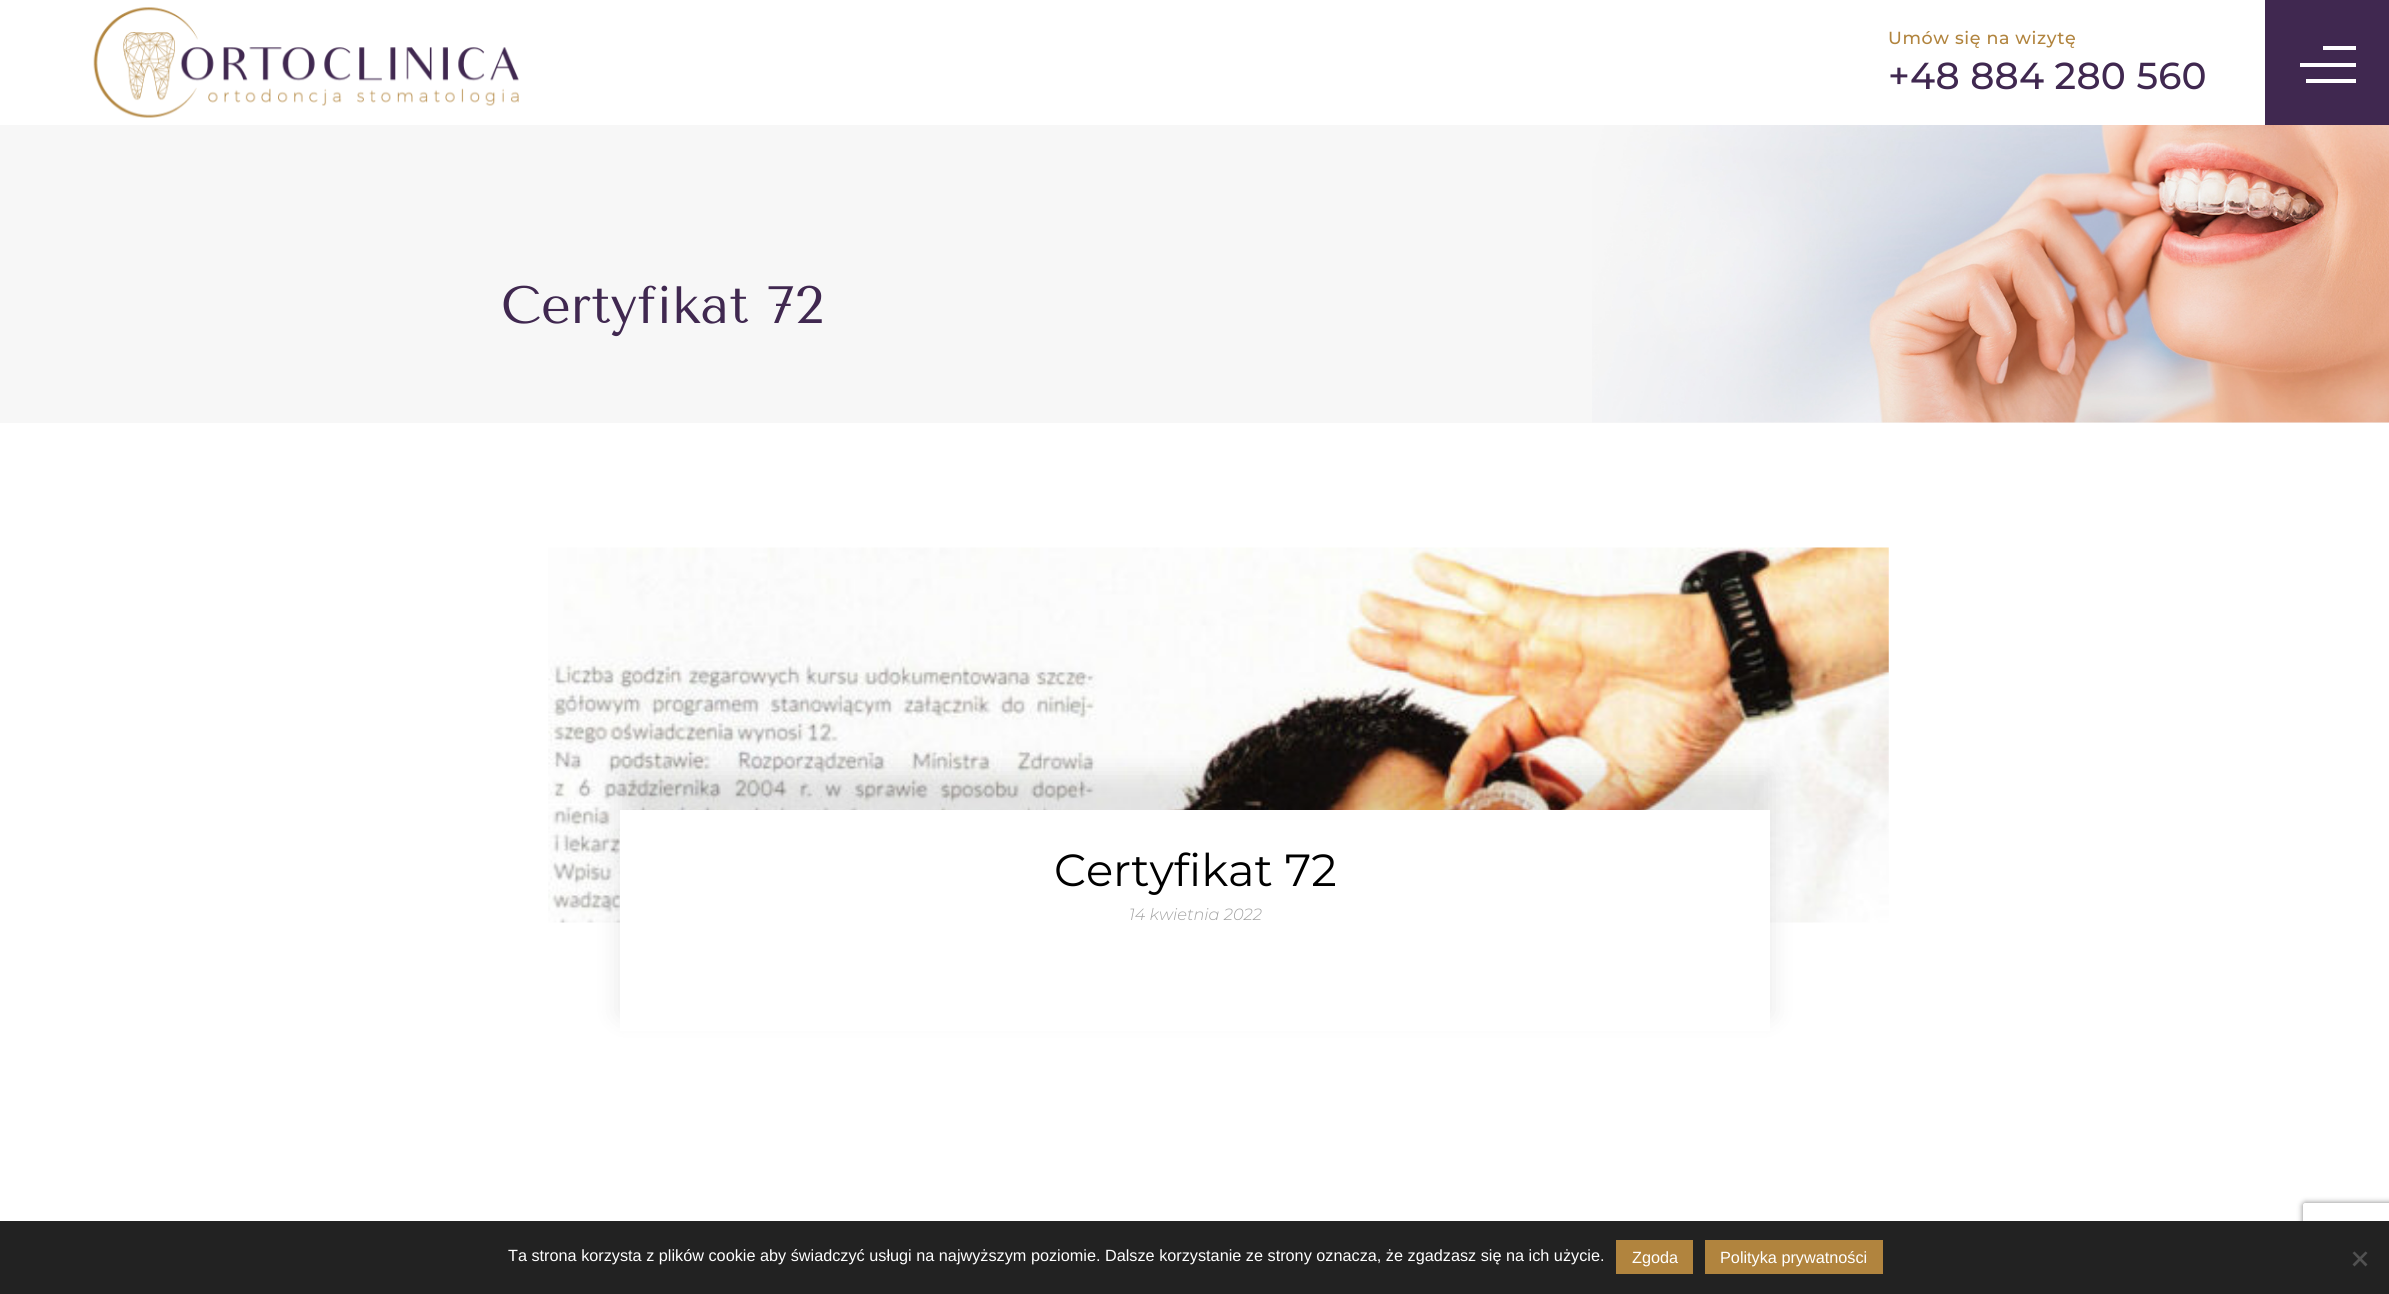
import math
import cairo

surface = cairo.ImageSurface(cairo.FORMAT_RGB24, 2389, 1294)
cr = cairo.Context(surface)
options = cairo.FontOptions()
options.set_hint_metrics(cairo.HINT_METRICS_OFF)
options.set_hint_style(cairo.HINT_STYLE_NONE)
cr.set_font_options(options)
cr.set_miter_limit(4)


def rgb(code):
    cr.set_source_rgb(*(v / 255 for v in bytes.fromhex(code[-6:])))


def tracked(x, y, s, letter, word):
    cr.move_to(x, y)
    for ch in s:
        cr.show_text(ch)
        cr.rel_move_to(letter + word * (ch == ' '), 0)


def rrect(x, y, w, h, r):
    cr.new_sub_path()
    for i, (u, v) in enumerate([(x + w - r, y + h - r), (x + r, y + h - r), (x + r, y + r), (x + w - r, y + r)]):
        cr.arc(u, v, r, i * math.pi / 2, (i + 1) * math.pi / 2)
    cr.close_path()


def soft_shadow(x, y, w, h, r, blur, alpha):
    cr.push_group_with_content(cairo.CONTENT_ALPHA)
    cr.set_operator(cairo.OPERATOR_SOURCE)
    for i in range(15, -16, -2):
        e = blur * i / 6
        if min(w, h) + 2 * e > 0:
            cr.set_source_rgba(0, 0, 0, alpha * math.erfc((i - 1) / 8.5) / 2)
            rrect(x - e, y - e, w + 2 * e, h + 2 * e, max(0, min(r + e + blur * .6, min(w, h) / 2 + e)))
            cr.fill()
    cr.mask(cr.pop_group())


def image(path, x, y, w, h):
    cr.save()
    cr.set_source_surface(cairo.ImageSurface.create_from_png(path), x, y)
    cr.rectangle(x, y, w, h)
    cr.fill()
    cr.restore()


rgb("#ffffff")
cr.paint()
image("img/1.png", 93, 7, 426, 111)
for x, y, w, h, color in [
    (2265, 0, 124, 125, "#402850"),
    (2323, 46, 33, 4, "#ffffff"),
    (2300, 63, 56, 4, "#ffffff"),
    (2306, 79, 50, 4, "#ffffff"),
    (0, 125, 2389, 298, "#f7f7f7"),
]:
    rgb(color)
    cr.rectangle(x, y, w, h)
    cr.fill()
image("img/2.png", 1592, 125, 797, 298)
image("img/3.png", 548, 547, 1341, 376)
rgb("#000000")
soft_shadow(620, 773, 1150, 242, 0, 12.5, 0.1)
rgb("#ffffff")
cr.rectangle(620, 810, 1150, 221)
cr.fill()
cr.save()
cr.set_fill_rule(cairo.FILL_RULE_EVEN_ODD)
cr.new_path()
cr.move_to(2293, 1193)
cr.line_to(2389, 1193)
cr.line_to(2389, 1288)
cr.line_to(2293, 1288)
cr.close_path()
cr.move_to(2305.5, 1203)
cr.line_to(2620.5, 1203)
cr.curve_to(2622, 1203, 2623, 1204, 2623, 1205.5)
cr.line_to(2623, 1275.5)
cr.curve_to(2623, 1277, 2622, 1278, 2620.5, 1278)
cr.line_to(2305.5, 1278)
cr.curve_to(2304, 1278, 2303, 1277, 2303, 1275.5)
cr.line_to(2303, 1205.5)
cr.curve_to(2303, 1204, 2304, 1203, 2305.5, 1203)
cr.close_path()
cr.clip()
rgb("#808080")
soft_shadow(2303, 1203, 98, 75, 2.5, 3, 1)
cr.restore()
for x, y, w, h, color in [
    (0, 1221, 2389, 73, "#222222"),
    (1616, 1240, 77, 34, "#b1843e"),
    (1705, 1240, 178, 34, "#b1843e"),
]:
    rgb(color)
    cr.rectangle(x, y, w, h)
    cr.fill()
rgb("#515151")
cr.new_path()
cr.move_to(2365.5, 1251.5)
cr.line_to(2367.5, 1253)
cr.line_to(2354.5, 1266.5)
cr.line_to(2352.5, 1264.5)
cr.close_path()
cr.fill()
cr.new_path()
cr.move_to(2352.5, 1253)
cr.line_to(2354.5, 1251.5)
cr.line_to(2367.5, 1264.5)
cr.line_to(2365.5, 1266.5)
cr.close_path()
cr.fill()
cr.select_font_face("Montserrat Medium")
cr.set_font_size(17.5)
rgb("#b1843e")
tracked(1888, 44, "Umów się na wizytę", 0.6, 0)
cr.set_font_size(37.5)
rgb("#402850")
tracked(1888, 89, "+48 884 280 560", 0.25, 0)
cr.select_font_face("Tenor Sans")
cr.set_font_size(52.5)
cr.move_to(501, 323)
cr.show_text("Certyfikat 72")
cr.select_font_face("Montserrat")
cr.set_font_size(45)
rgb("#000000")
cr.move_to(1054, 886)
cr.show_text("Certyfikat 72")
cr.select_font_face("Montserrat Thin", cairo.FONT_SLANT_ITALIC)
cr.set_font_size(16.25)
rgb("#a2a2a2")
cr.move_to(1129, 920)
cr.show_text("14 kwietnia 2022")
cr.select_font_face("Liberation Sans")
rgb("#ffffff")
for x, y, s in [
    (508, 1261, "Ta strona korzysta z plików cookie aby świadczyć usługi na najwyższym poziomie. Dalsze korzystanie ze strony oznacza, że zgadzasz się na ich użycie."),
    (1632, 1263, "Zgoda"),
    (1720, 1263, "Polityka prywatności"),
]:
    cr.move_to(x, y)
    cr.show_text(s)
surface.write_to_png("page.png")
